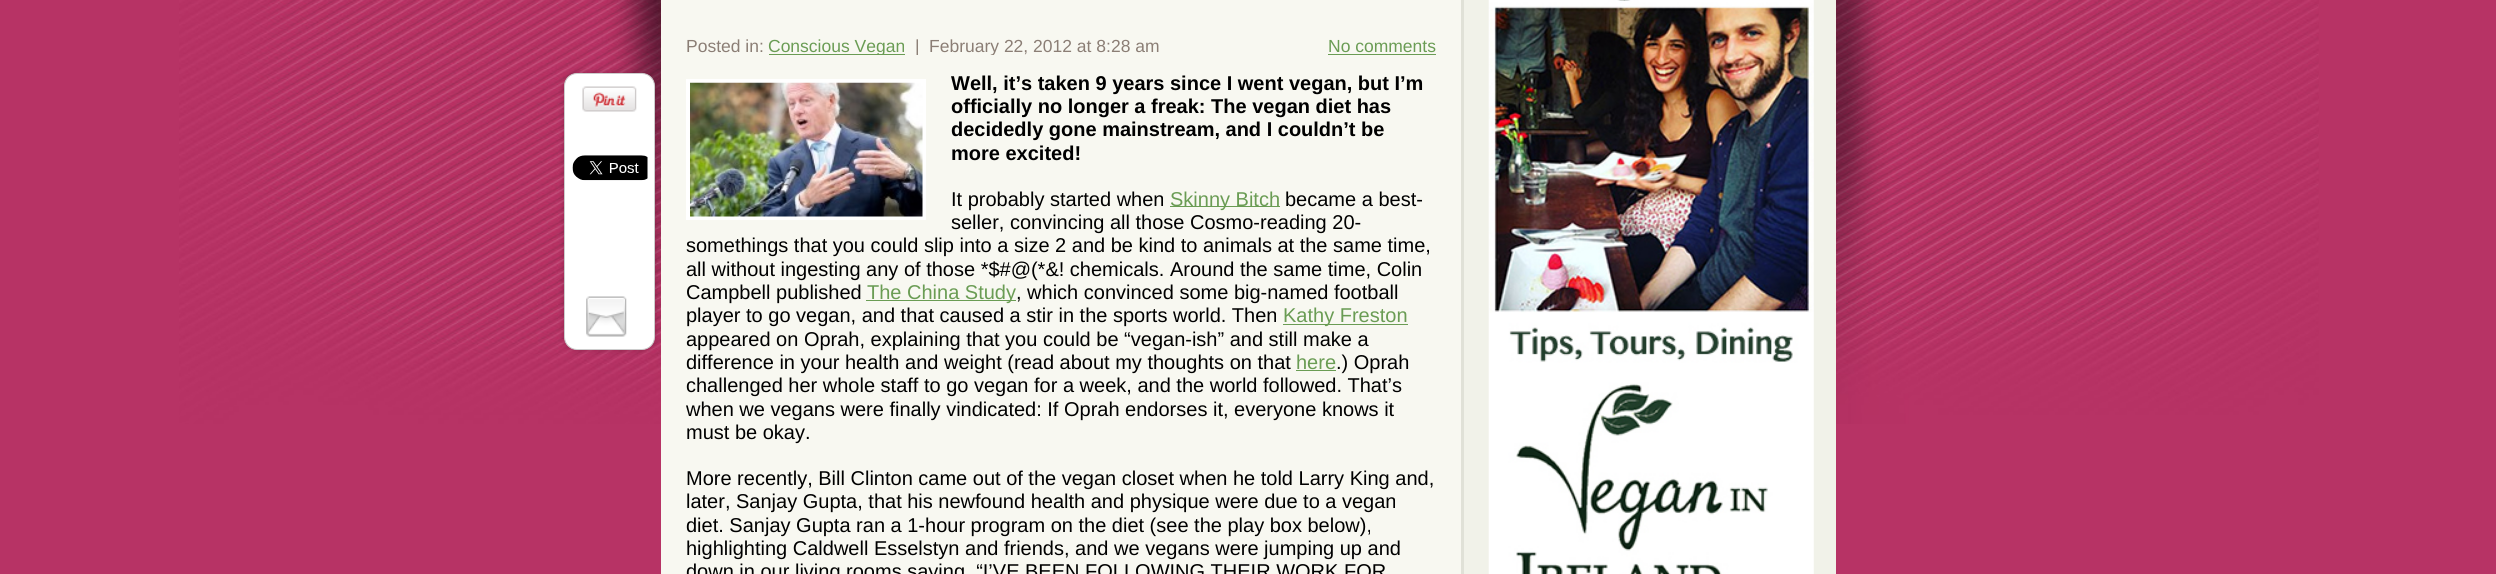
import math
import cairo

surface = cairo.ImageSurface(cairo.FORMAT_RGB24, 2496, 574)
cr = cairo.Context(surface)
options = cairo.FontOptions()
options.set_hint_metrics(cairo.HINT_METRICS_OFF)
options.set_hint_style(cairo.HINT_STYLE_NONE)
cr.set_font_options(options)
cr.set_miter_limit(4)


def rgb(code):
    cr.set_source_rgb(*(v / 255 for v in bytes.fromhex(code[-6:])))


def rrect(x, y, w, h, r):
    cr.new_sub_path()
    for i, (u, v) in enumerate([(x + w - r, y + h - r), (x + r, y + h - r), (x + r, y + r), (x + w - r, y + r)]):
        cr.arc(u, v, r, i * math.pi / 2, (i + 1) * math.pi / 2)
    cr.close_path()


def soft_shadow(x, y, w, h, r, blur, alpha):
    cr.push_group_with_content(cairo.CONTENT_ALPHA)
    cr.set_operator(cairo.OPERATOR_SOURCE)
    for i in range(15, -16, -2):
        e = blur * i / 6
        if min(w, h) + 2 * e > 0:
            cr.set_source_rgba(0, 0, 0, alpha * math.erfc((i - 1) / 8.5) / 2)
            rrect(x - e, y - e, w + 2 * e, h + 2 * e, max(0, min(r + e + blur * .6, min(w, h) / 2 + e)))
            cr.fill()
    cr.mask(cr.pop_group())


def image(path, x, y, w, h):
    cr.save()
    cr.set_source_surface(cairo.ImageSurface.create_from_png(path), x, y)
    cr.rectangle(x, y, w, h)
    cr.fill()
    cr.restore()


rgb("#b73365")
cr.paint()
image("img/1.png", 179, 0, 2140, 424)
rgb("#f8f8f1")
cr.rectangle(661, 0, 800, 574)
cr.fill()
rgb("#000000")
soft_shadow(564, 73, 91, 277, 13, 3, 0.2)
rgb("#ffffff")
rrect(564.5, 73.5, 90, 276, 12.5)
cr.fill_preserve()
rgb("#cccccc")
cr.set_line_width(1)
cr.stroke()
image("img/2.png", 582, 86, 55, 26)
image("img/3.png", 572, 155, 76, 26)
image("img/4.png", 586, 296, 41, 41)
for x, y, w, h, color in [
    (769, 54, 136, 1, "#6a9c54"),
    (1328, 54, 108, 1, "#6a9c54"),
    (1170, 206, 110, 1, "#6a9c54"),
    (866, 300, 150, 1, "#6a9c54"),
    (1283, 324, 125, 1, "#6a9c54"),
    (1296, 370, 40, 1, "#6a9c54"),
    (686, 79, 240, 141, "#ffffff"),
]:
    rgb(color)
    cr.rectangle(x, y, w, h)
    cr.fill()
image("img/5.png", 690, 82, 233, 135)
rgb("#f1f2e9")
cr.rectangle(1464, 0, 372, 574)
cr.fill()
rgb("#e0e1d7")
cr.rectangle(1461, 0, 3, 574)
cr.fill()
image("img/6.png", 1488, 0, 326, 574)
cr.select_font_face("Liberation Sans")
cr.set_font_size(17.5)
rgb("#8b7e75")
cr.move_to(686, 52)
cr.show_text("Posted in:")
cr.save()
cr.rectangle(686, 38, 750, 17)
cr.clip()
rgb("#6a9c54")
cr.move_to(768, 52)
cr.show_text("Conscious Vegan")
rgb("#8b7e75")
cr.move_to(915, 52)
cr.show_text("|")
cr.move_to(929, 52)
cr.show_text("February 22, 2012 at 8:28 am")
cr.restore()
rgb("#6a9c54")
cr.move_to(1328, 52)
cr.show_text("No comments")
cr.select_font_face("Liberation Sans", cairo.FONT_SLANT_NORMAL, cairo.FONT_WEIGHT_BOLD)
cr.set_font_size(20)
rgb("#000000")
for x, y, s in [
    (951, 90, "Well, it’s taken 9 years since I went vegan, but I’m"),
    (951, 113, "officially no longer a freak: The vegan diet has"),
    (951, 136, "decidedly gone mainstream, and I couldn’t be"),
    (951, 160, "more excited!"),
]:
    cr.move_to(x, y)
    cr.show_text(s)
cr.select_font_face("Liberation Sans")
cr.move_to(951, 206)
cr.show_text("It probably started when")
rgb("#6a9c54")
cr.move_to(1170, 206)
cr.show_text("Skinny Bitch")
rgb("#000000")
for x, y, s in [
    (1285, 206, "became a best-"),
    (951, 229, "seller, convincing all those Cosmo-reading 20-"),
    (686, 252, "somethings that you could slip into a size 2 and be kind to animals at the same time,"),
    (686, 276, "all without ingesting any of those *$#@(*&! chemicals. Around the same time, Colin"),
    (686, 299, "Campbell published"),
]:
    cr.move_to(x, y)
    cr.show_text(s)
rgb("#6a9c54")
cr.move_to(867, 299)
cr.show_text("The China Study")
rgb("#000000")
cr.move_to(1016, 299)
cr.show_text(", which convinced some big-named football")
cr.move_to(686, 322)
cr.show_text("player to go vegan, and that caused a stir in the sports world. Then")
rgb("#6a9c54")
cr.move_to(1283, 322)
cr.show_text("Kathy Freston")
rgb("#000000")
cr.move_to(686, 346)
cr.show_text("appeared on Oprah, explaining that you could be “vegan-ish” and still make a")
cr.move_to(686, 369)
cr.show_text("difference in your health and weight (read about my thoughts on that")
rgb("#6a9c54")
cr.move_to(1296, 369)
cr.show_text("here")
rgb("#000000")
for x, y, s in [
    (1336, 369, ".) Oprah"),
    (686, 392, "challenged her whole staff to go vegan for a week, and the world followed. That’s"),
    (686, 416, "when we vegans were finally vindicated: If Oprah endorses it, everyone knows it"),
    (686, 439, "must be okay."),
    (686, 485, "More recently, Bill Clinton came out of the vegan closet when he told Larry King and,"),
    (686, 508, "later, Sanjay Gupta, that his newfound health and physique were due to a vegan"),
    (686, 532, "diet. Sanjay Gupta ran a 1-hour program on the diet (see the play box below),"),
    (686, 555, "highlighting Caldwell Esselstyn and friends, and we vegans were jumping up and"),
    (686, 578, "down in our living rooms saying, “I’VE BEEN FOLLOWING THEIR WORK FOR"),
]:
    cr.move_to(x, y)
    cr.show_text(s)
surface.write_to_png("page.png")
